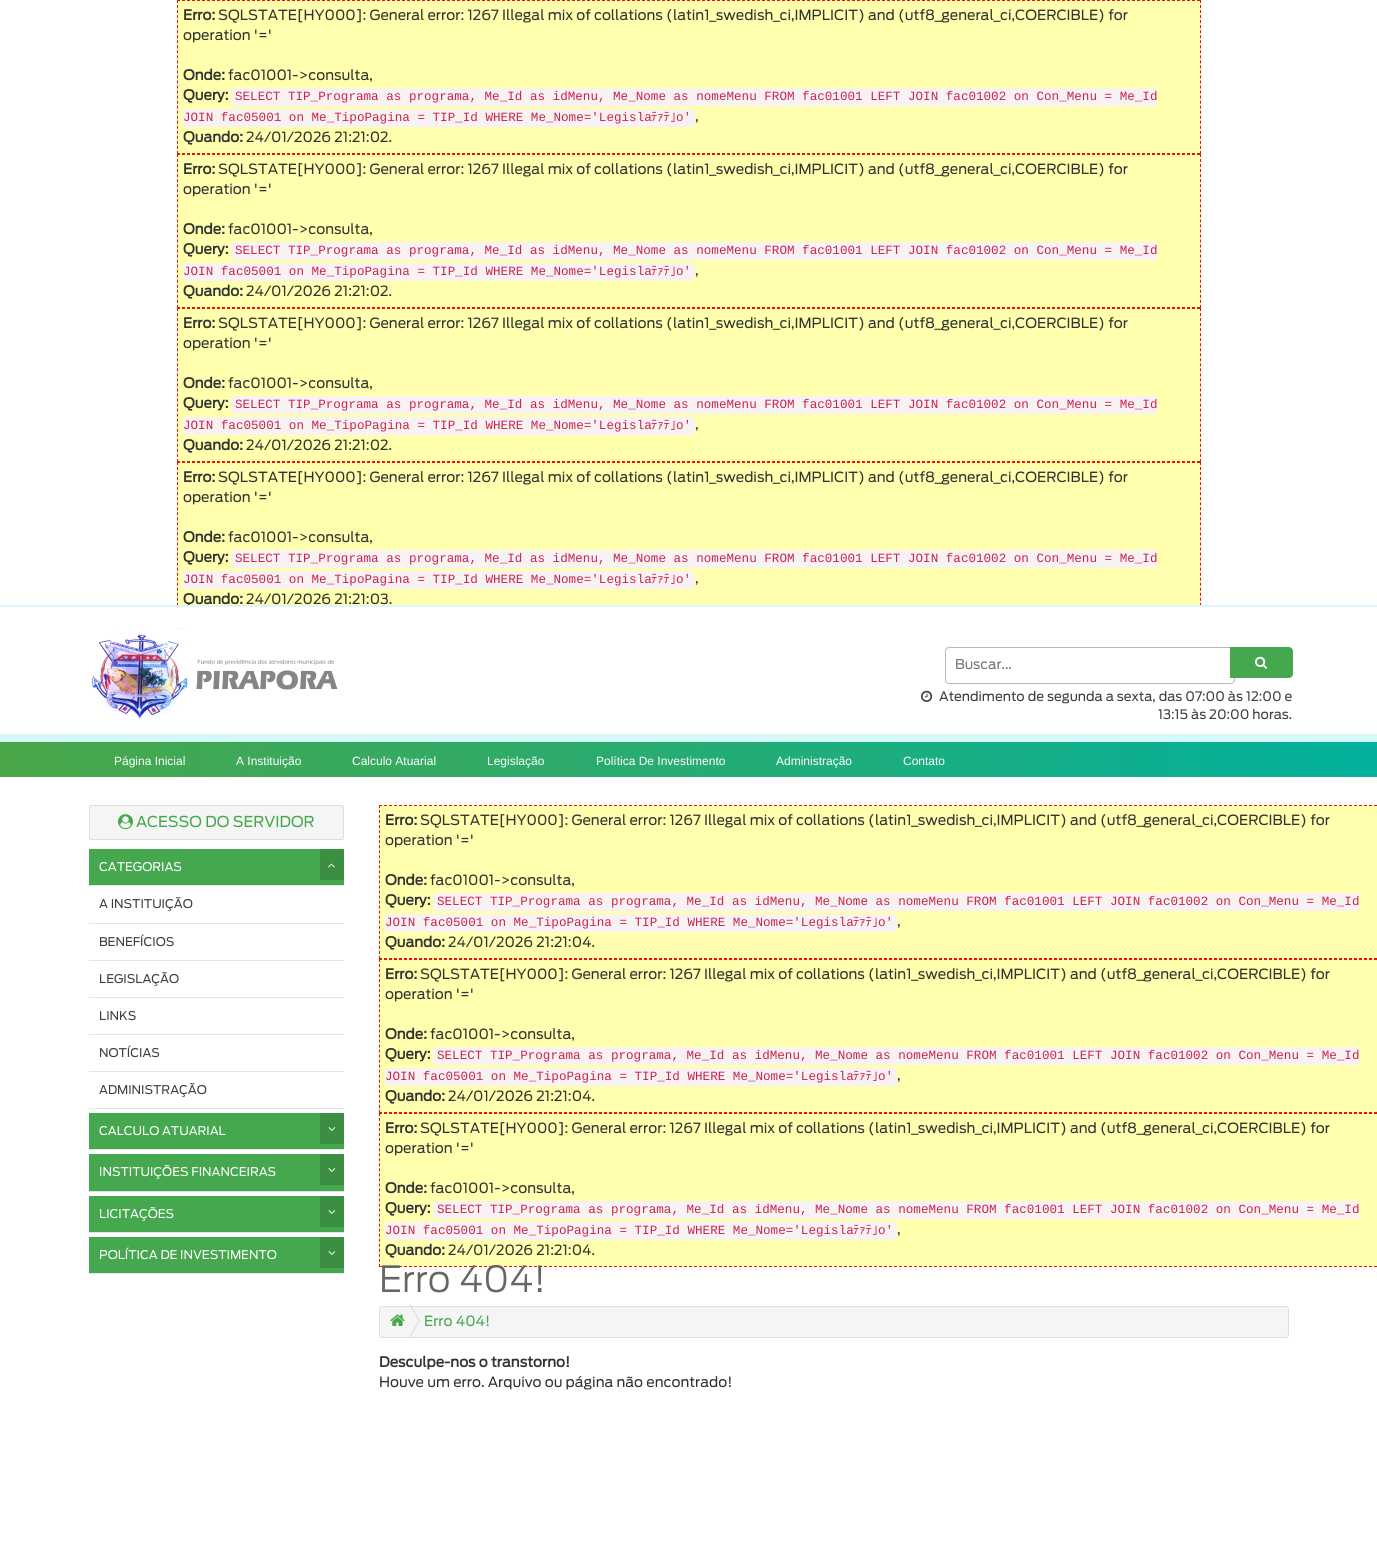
import math
import cairo

surface = cairo.ImageSurface(cairo.FORMAT_RGB24, 1377, 1565)
cr = cairo.Context(surface)
options = cairo.FontOptions()
options.set_hint_metrics(cairo.HINT_METRICS_OFF)
options.set_hint_style(cairo.HINT_STYLE_NONE)
cr.set_font_options(options)
cr.set_miter_limit(4)


def rgb(code):
    cr.set_source_rgb(*(v / 255 for v in bytes.fromhex(code[-6:])))


def rrect(x, y, w, h, r):
    cr.new_sub_path()
    for i, (u, v) in enumerate([(x + w - r, y + h - r), (x + r, y + h - r), (x + r, y + r), (x + w - r, y + r)]):
        cr.arc(u, v, r, i * math.pi / 2, (i + 1) * math.pi / 2)
    cr.close_path()


def image(path, x, y, w, h):
    cr.save()
    cr.set_source_surface(cairo.ImageSurface.create_from_png(path), x, y)
    cr.rectangle(x, y, w, h)
    cr.fill()
    cr.restore()


rgb("#ffffff")
cr.paint()
rgb("#ffffae")
cr.rectangle(177, 0, 1024, 605)
cr.fill()
cr.new_path()
cr.move_to(177, 0.5)
cr.line_to(1201, 0.5)
rgb("#eb0f0f")
cr.set_line_width(1)
cr.set_dash([3, 2])
cr.stroke()
cr.new_path()
cr.move_to(1200.5, 0)
cr.line_to(1200.5, 154)
cr.set_dash([3, 2.03])
cr.stroke()
cr.new_path()
cr.move_to(177, 153.5)
cr.line_to(1201, 153.5)
cr.set_dash([3, 2])
cr.stroke()
cr.new_path()
cr.move_to(177.5, 0)
cr.line_to(177.5, 154)
cr.set_dash([3, 2.03])
cr.stroke()
rgb("#f9f2f4")
cr.new_path()
cr.move_to(235, 88)
cr.line_to(1157, 88)
cr.line_to(1157, 106)
cr.line_to(235, 106)
cr.curve_to(233, 106, 231, 104, 231, 102)
cr.line_to(231, 92)
cr.curve_to(231, 90, 233, 88, 235, 88)
cr.close_path()
cr.fill()
cr.new_path()
cr.move_to(183, 109)
cr.line_to(691, 109)
cr.curve_to(693, 109, 695, 111, 695, 113)
cr.line_to(695, 123)
cr.curve_to(695, 125, 693, 127, 691, 127)
cr.line_to(183, 127)
cr.close_path()
cr.fill()
cr.new_path()
cr.move_to(177, 154.5)
cr.line_to(1201, 154.5)
rgb("#eb0f0f")
cr.set_dash([3, 2])
cr.stroke()
cr.new_path()
cr.move_to(1200.5, 154)
cr.line_to(1200.5, 308)
cr.set_dash([3, 2.03])
cr.stroke()
cr.new_path()
cr.move_to(177, 307.5)
cr.line_to(1201, 307.5)
cr.set_dash([3, 2])
cr.stroke()
cr.new_path()
cr.move_to(177.5, 154)
cr.line_to(177.5, 308)
cr.set_dash([3, 2.03])
cr.stroke()
rgb("#f9f2f4")
cr.new_path()
cr.move_to(235, 242)
cr.line_to(1157, 242)
cr.line_to(1157, 260)
cr.line_to(235, 260)
cr.curve_to(233, 260, 231, 258, 231, 256)
cr.line_to(231, 246)
cr.curve_to(231, 244, 233, 242, 235, 242)
cr.close_path()
cr.fill()
cr.new_path()
cr.move_to(183, 263)
cr.line_to(691, 263)
cr.curve_to(693, 263, 695, 265, 695, 267)
cr.line_to(695, 277)
cr.curve_to(695, 279, 693, 281, 691, 281)
cr.line_to(183, 281)
cr.close_path()
cr.fill()
cr.new_path()
cr.move_to(177, 308.5)
cr.line_to(1201, 308.5)
rgb("#eb0f0f")
cr.set_dash([3, 2])
cr.stroke()
cr.new_path()
cr.move_to(1200.5, 308)
cr.line_to(1200.5, 462)
cr.set_dash([3, 2.03])
cr.stroke()
cr.new_path()
cr.move_to(177, 461.5)
cr.line_to(1201, 461.5)
cr.set_dash([3, 2])
cr.stroke()
cr.new_path()
cr.move_to(177.5, 308)
cr.line_to(177.5, 462)
cr.set_dash([3, 2.03])
cr.stroke()
rgb("#f9f2f4")
cr.new_path()
cr.move_to(235, 396)
cr.line_to(1157, 396)
cr.line_to(1157, 414)
cr.line_to(235, 414)
cr.curve_to(233, 414, 231, 412, 231, 410)
cr.line_to(231, 400)
cr.curve_to(231, 398, 233, 396, 235, 396)
cr.close_path()
cr.fill()
cr.new_path()
cr.move_to(183, 417)
cr.line_to(691, 417)
cr.curve_to(693, 417, 695, 419, 695, 421)
cr.line_to(695, 431)
cr.curve_to(695, 433, 693, 435, 691, 435)
cr.line_to(183, 435)
cr.close_path()
cr.fill()
cr.new_path()
cr.move_to(177, 462.5)
cr.line_to(1201, 462.5)
rgb("#eb0f0f")
cr.set_dash([3, 2])
cr.stroke()
cr.new_path()
cr.move_to(1200.5, 462)
cr.line_to(1200.5, 616)
cr.set_dash([3, 2.03])
cr.stroke()
cr.new_path()
cr.move_to(177.5, 462)
cr.line_to(177.5, 616)
cr.stroke()
rgb("#f9f2f4")
cr.new_path()
cr.move_to(235, 550)
cr.line_to(1157, 550)
cr.line_to(1157, 568)
cr.line_to(235, 568)
cr.curve_to(233, 568, 231, 566, 231, 564)
cr.line_to(231, 554)
cr.curve_to(231, 552, 233, 550, 235, 550)
cr.close_path()
cr.fill()
cr.new_path()
cr.move_to(183, 571)
cr.line_to(691, 571)
cr.curve_to(693, 571, 695, 573, 695, 575)
cr.line_to(695, 585)
cr.curve_to(695, 587, 693, 589, 691, 589)
cr.line_to(183, 589)
cr.close_path()
cr.fill()
rgb("#ffffff")
cr.rectangle(177, 607, 1024, 9)
cr.fill()
rgb("#d4f9f9")
cr.rectangle(0, 734, 1377, 8)
cr.fill()
image("img/1.png", 89, 628, 249, 91)
rrect(945.5, 647.5, 289, 36, 3.5)
rgb("#b9b9b9")
cr.set_dash([])
cr.stroke()
rgb("#45a84f")
cr.new_path()
cr.move_to(1230, 647)
cr.line_to(1289, 647)
cr.curve_to(1291, 647, 1293, 649, 1293, 651)
cr.line_to(1293, 674)
cr.curve_to(1293, 676, 1291, 678, 1289, 678)
cr.line_to(1230, 678)
cr.close_path()
cr.fill()
image("img/2.png", 1255, 656, 12, 13)
image("img/3.png", 921, 690, 12, 12)
gradient = cairo.LinearGradient(0, 695, 1377, 695)
gradient.add_color_stop_rgba(0, 0.29, 0.655, 0.286, 1)
gradient.add_color_stop_rgba(1, 0.008, 0.694, 0.616, 1)
cr.set_source(gradient)
cr.rectangle(0, 742, 1377, 35)
cr.fill()
rgb("#f5f5f5")
rrect(89.5, 805.5, 254, 34, 1.5)
cr.fill_preserve()
rgb("#dddddd")
cr.stroke()
image("img/4.png", 118, 814, 15, 16)
for x, y, w, h, color in [
    (89, 849, 255, 36, "#45a84f"),
    (89, 885, 255, 1, "#e3e3e3"),
    (320, 849, 24, 31, "#3b8f43"),
]:
    rgb(color)
    cr.rectangle(x, y, w, h)
    cr.fill()
image("img/5.png", 328, 863, 7, 5)
for x, y, w, h, color in [
    (89, 923, 255, 1, "#e3e3e3"),
    (89, 960, 255, 1, "#e3e3e3"),
    (89, 997, 255, 1, "#e3e3e3"),
    (89, 1034, 255, 1, "#e3e3e3"),
    (89, 1071, 255, 1, "#e3e3e3"),
    (89, 1108, 255, 1, "#e3e3e3"),
    (89, 1113, 255, 36, "#45a84f"),
    (89, 1149, 255, 1, "#e3e3e3"),
    (320, 1113, 24, 31, "#3b8f43"),
]:
    rgb(color)
    cr.rectangle(x, y, w, h)
    cr.fill()
image("img/6.png", 328, 1127, 8, 4)
for x, y, w, h, color in [
    (89, 1154, 255, 37, "#45a84f"),
    (89, 1191, 255, 1, "#e3e3e3"),
    (320, 1154, 24, 31, "#3b8f43"),
]:
    rgb(color)
    cr.rectangle(x, y, w, h)
    cr.fill()
image("img/6.png", 328, 1168, 8, 4)
for x, y, w, h, color in [
    (89, 1196, 255, 36, "#45a84f"),
    (89, 1232, 255, 1, "#e3e3e3"),
    (320, 1196, 24, 31, "#3b8f43"),
]:
    rgb(color)
    cr.rectangle(x, y, w, h)
    cr.fill()
image("img/6.png", 328, 1210, 8, 4)
for x, y, w, h, color in [
    (89, 1237, 255, 36, "#45a84f"),
    (89, 1273, 255, 1, "#e3e3e3"),
    (320, 1237, 24, 31, "#3b8f43"),
]:
    rgb(color)
    cr.rectangle(x, y, w, h)
    cr.fill()
image("img/6.png", 328, 1251, 8, 4)
rgb("#ffffae")
cr.rectangle(379, 805, 998, 462)
cr.fill()
cr.new_path()
cr.move_to(379, 805.5)
cr.line_to(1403, 805.5)
rgb("#eb0f0f")
cr.set_dash([3, 2])
cr.stroke()
cr.new_path()
cr.move_to(379, 958.5)
cr.line_to(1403, 958.5)
cr.stroke()
cr.new_path()
cr.move_to(379.5, 805)
cr.line_to(379.5, 959)
cr.set_dash([3, 2.03])
cr.stroke()
rgb("#f9f2f4")
cr.new_path()
cr.move_to(437, 893)
cr.line_to(1359, 893)
cr.line_to(1359, 911)
cr.line_to(437, 911)
cr.curve_to(435, 911, 433, 909, 433, 907)
cr.line_to(433, 897)
cr.curve_to(433, 895, 435, 893, 437, 893)
cr.close_path()
cr.fill()
cr.new_path()
cr.move_to(385, 914)
cr.line_to(893, 914)
cr.curve_to(895, 914, 897, 916, 897, 918)
cr.line_to(897, 928)
cr.curve_to(897, 930, 895, 932, 893, 932)
cr.line_to(385, 932)
cr.close_path()
cr.fill()
cr.new_path()
cr.move_to(379, 959.5)
cr.line_to(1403, 959.5)
rgb("#eb0f0f")
cr.set_dash([3, 2])
cr.stroke()
cr.new_path()
cr.move_to(379, 1112.5)
cr.line_to(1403, 1112.5)
cr.stroke()
cr.new_path()
cr.move_to(379.5, 959)
cr.line_to(379.5, 1113)
cr.set_dash([3, 2.03])
cr.stroke()
rgb("#f9f2f4")
cr.new_path()
cr.move_to(437, 1047)
cr.line_to(1359, 1047)
cr.line_to(1359, 1065)
cr.line_to(437, 1065)
cr.curve_to(435, 1065, 433, 1063, 433, 1061)
cr.line_to(433, 1051)
cr.curve_to(433, 1049, 435, 1047, 437, 1047)
cr.close_path()
cr.fill()
cr.new_path()
cr.move_to(385, 1068)
cr.line_to(893, 1068)
cr.curve_to(895, 1068, 897, 1070, 897, 1072)
cr.line_to(897, 1082)
cr.curve_to(897, 1084, 895, 1086, 893, 1086)
cr.line_to(385, 1086)
cr.close_path()
cr.fill()
cr.new_path()
cr.move_to(379, 1113.5)
cr.line_to(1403, 1113.5)
rgb("#eb0f0f")
cr.set_dash([3, 2])
cr.stroke()
cr.new_path()
cr.move_to(379, 1266.5)
cr.line_to(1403, 1266.5)
cr.stroke()
cr.new_path()
cr.move_to(379.5, 1113)
cr.line_to(379.5, 1267)
cr.set_dash([3, 2.03])
cr.stroke()
rgb("#f9f2f4")
cr.new_path()
cr.move_to(437, 1201)
cr.line_to(1359, 1201)
cr.line_to(1359, 1219)
cr.line_to(437, 1219)
cr.curve_to(435, 1219, 433, 1217, 433, 1215)
cr.line_to(433, 1205)
cr.curve_to(433, 1203, 435, 1201, 437, 1201)
cr.close_path()
cr.fill()
cr.new_path()
cr.move_to(385, 1222)
cr.line_to(893, 1222)
cr.curve_to(895, 1222, 897, 1224, 897, 1226)
cr.line_to(897, 1236)
cr.curve_to(897, 1238, 895, 1240, 893, 1240)
cr.line_to(385, 1240)
cr.close_path()
cr.fill()
rgb("#f5f5f5")
rrect(379.5, 1306.5, 909, 31, 2.5)
cr.fill_preserve()
rgb("#dddddd")
cr.set_dash([])
cr.stroke()
image("img/7.png", 390, 1314, 15, 12)
cr.new_path()
cr.move_to(409.5, 1304.5)
cr.line_to(410.5, 1304)
cr.line_to(420, 1320.5)
cr.line_to(419, 1321)
cr.close_path()
cr.fill()
cr.new_path()
cr.move_to(419, 1320)
cr.line_to(420, 1320.5)
cr.line_to(410.5, 1337)
cr.line_to(409.5, 1336.5)
cr.close_path()
cr.fill()
cr.select_font_face("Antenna", cairo.FONT_SLANT_NORMAL, cairo.FONT_WEIGHT_BOLD)
cr.set_font_size(14)
rgb("#333333")
cr.move_to(183, 20)
cr.show_text("Erro:")
cr.select_font_face("Antenna")
cr.move_to(218, 20)
cr.show_text("SQLSTATE[HY000]: General error: 1267 Illegal mix of collations (latin1_swedish_ci,IMPLICIT) and (utf8_general_ci,COERCIBLE) for")
cr.move_to(183, 40)
cr.show_text("operation '='")
cr.select_font_face("Antenna", cairo.FONT_SLANT_NORMAL, cairo.FONT_WEIGHT_BOLD)
cr.move_to(183, 80)
cr.show_text("Onde:")
cr.select_font_face("Antenna")
cr.move_to(228, 80)
cr.show_text("fac01001->consulta,")
cr.select_font_face("Antenna", cairo.FONT_SLANT_NORMAL, cairo.FONT_WEIGHT_BOLD)
cr.move_to(183, 100)
cr.show_text("Query:")
cr.select_font_face("Liberation Mono")
cr.set_font_size(12.6)
rgb("#c7254e")
cr.move_to(235, 100)
cr.show_text("SELECT TIP_Programa as programa, Me_Id as idMenu, Me_Nome as nomeMenu FROM fac01001 LEFT JOIN fac01002 on Con_Menu = Me_Id")
cr.move_to(183, 121)
cr.show_text("JOIN fac05001 on Me_TipoPagina = TIP_Id WHERE Me_Nome='Legisla")
cr.select_font_face("IPAGothic")
cr.move_to(651, 121)
cr.show_text("ﾃｧﾃ｣")
cr.select_font_face("Liberation Mono")
cr.move_to(676, 121)
cr.show_text("o'")
cr.select_font_face("Antenna")
cr.set_font_size(14)
rgb("#333333")
cr.move_to(695, 121)
cr.show_text(",")
cr.select_font_face("Antenna", cairo.FONT_SLANT_NORMAL, cairo.FONT_WEIGHT_BOLD)
cr.move_to(183, 142)
cr.show_text("Quando:")
cr.select_font_face("Antenna")
cr.move_to(246, 142)
cr.show_text("24/01/2026 21:21:02.")
cr.select_font_face("Antenna", cairo.FONT_SLANT_NORMAL, cairo.FONT_WEIGHT_BOLD)
cr.move_to(183, 174)
cr.show_text("Erro:")
cr.select_font_face("Antenna")
cr.move_to(218, 174)
cr.show_text("SQLSTATE[HY000]: General error: 1267 Illegal mix of collations (latin1_swedish_ci,IMPLICIT) and (utf8_general_ci,COERCIBLE) for")
cr.move_to(183, 194)
cr.show_text("operation '='")
cr.select_font_face("Antenna", cairo.FONT_SLANT_NORMAL, cairo.FONT_WEIGHT_BOLD)
cr.move_to(183, 234)
cr.show_text("Onde:")
cr.select_font_face("Antenna")
cr.move_to(228, 234)
cr.show_text("fac01001->consulta,")
cr.select_font_face("Antenna", cairo.FONT_SLANT_NORMAL, cairo.FONT_WEIGHT_BOLD)
cr.move_to(183, 254)
cr.show_text("Query:")
cr.select_font_face("Liberation Mono")
cr.set_font_size(12.6)
rgb("#c7254e")
cr.move_to(235, 254)
cr.show_text("SELECT TIP_Programa as programa, Me_Id as idMenu, Me_Nome as nomeMenu FROM fac01001 LEFT JOIN fac01002 on Con_Menu = Me_Id")
cr.move_to(183, 275)
cr.show_text("JOIN fac05001 on Me_TipoPagina = TIP_Id WHERE Me_Nome='Legisla")
cr.select_font_face("IPAGothic")
cr.move_to(651, 275)
cr.show_text("ﾃｧﾃ｣")
cr.select_font_face("Liberation Mono")
cr.move_to(676, 275)
cr.show_text("o'")
cr.select_font_face("Antenna")
cr.set_font_size(14)
rgb("#333333")
cr.move_to(695, 275)
cr.show_text(",")
cr.select_font_face("Antenna", cairo.FONT_SLANT_NORMAL, cairo.FONT_WEIGHT_BOLD)
cr.move_to(183, 296)
cr.show_text("Quando:")
cr.select_font_face("Antenna")
cr.move_to(246, 296)
cr.show_text("24/01/2026 21:21:02.")
cr.select_font_face("Antenna", cairo.FONT_SLANT_NORMAL, cairo.FONT_WEIGHT_BOLD)
cr.move_to(183, 328)
cr.show_text("Erro:")
cr.select_font_face("Antenna")
cr.move_to(218, 328)
cr.show_text("SQLSTATE[HY000]: General error: 1267 Illegal mix of collations (latin1_swedish_ci,IMPLICIT) and (utf8_general_ci,COERCIBLE) for")
cr.move_to(183, 348)
cr.show_text("operation '='")
cr.select_font_face("Antenna", cairo.FONT_SLANT_NORMAL, cairo.FONT_WEIGHT_BOLD)
cr.move_to(183, 388)
cr.show_text("Onde:")
cr.select_font_face("Antenna")
cr.move_to(228, 388)
cr.show_text("fac01001->consulta,")
cr.select_font_face("Antenna", cairo.FONT_SLANT_NORMAL, cairo.FONT_WEIGHT_BOLD)
cr.move_to(183, 408)
cr.show_text("Query:")
cr.select_font_face("Liberation Mono")
cr.set_font_size(12.6)
rgb("#c7254e")
cr.move_to(235, 408)
cr.show_text("SELECT TIP_Programa as programa, Me_Id as idMenu, Me_Nome as nomeMenu FROM fac01001 LEFT JOIN fac01002 on Con_Menu = Me_Id")
cr.move_to(183, 429)
cr.show_text("JOIN fac05001 on Me_TipoPagina = TIP_Id WHERE Me_Nome='Legisla")
cr.select_font_face("IPAGothic")
cr.move_to(651, 429)
cr.show_text("ﾃｧﾃ｣")
cr.select_font_face("Liberation Mono")
cr.move_to(676, 429)
cr.show_text("o'")
cr.select_font_face("Antenna")
cr.set_font_size(14)
rgb("#333333")
cr.move_to(695, 429)
cr.show_text(",")
cr.select_font_face("Antenna", cairo.FONT_SLANT_NORMAL, cairo.FONT_WEIGHT_BOLD)
cr.move_to(183, 450)
cr.show_text("Quando:")
cr.select_font_face("Antenna")
cr.move_to(246, 450)
cr.show_text("24/01/2026 21:21:02.")
cr.select_font_face("Antenna", cairo.FONT_SLANT_NORMAL, cairo.FONT_WEIGHT_BOLD)
cr.move_to(183, 482)
cr.show_text("Erro:")
cr.select_font_face("Antenna")
cr.move_to(218, 482)
cr.show_text("SQLSTATE[HY000]: General error: 1267 Illegal mix of collations (latin1_swedish_ci,IMPLICIT) and (utf8_general_ci,COERCIBLE) for")
cr.move_to(183, 502)
cr.show_text("operation '='")
cr.select_font_face("Antenna", cairo.FONT_SLANT_NORMAL, cairo.FONT_WEIGHT_BOLD)
cr.move_to(183, 542)
cr.show_text("Onde:")
cr.select_font_face("Antenna")
cr.move_to(228, 542)
cr.show_text("fac01001->consulta,")
cr.select_font_face("Antenna", cairo.FONT_SLANT_NORMAL, cairo.FONT_WEIGHT_BOLD)
cr.move_to(183, 562)
cr.show_text("Query:")
cr.select_font_face("Liberation Mono")
cr.set_font_size(12.6)
rgb("#c7254e")
cr.move_to(235, 562)
cr.show_text("SELECT TIP_Programa as programa, Me_Id as idMenu, Me_Nome as nomeMenu FROM fac01001 LEFT JOIN fac01002 on Con_Menu = Me_Id")
cr.move_to(183, 583)
cr.show_text("JOIN fac05001 on Me_TipoPagina = TIP_Id WHERE Me_Nome='Legisla")
cr.select_font_face("IPAGothic")
cr.move_to(651, 583)
cr.show_text("ﾃｧﾃ｣")
cr.select_font_face("Liberation Mono")
cr.move_to(676, 583)
cr.show_text("o'")
cr.select_font_face("Antenna")
cr.set_font_size(14)
rgb("#333333")
cr.move_to(695, 583)
cr.show_text(",")
cr.select_font_face("Antenna", cairo.FONT_SLANT_NORMAL, cairo.FONT_WEIGHT_BOLD)
cr.move_to(183, 604)
cr.show_text("Quando:")
cr.select_font_face("Antenna")
cr.move_to(246, 604)
cr.show_text("24/01/2026 21:21:03.")
cr.set_font_size(13.5)
rgb("#757575")
cr.move_to(955, 669)
cr.show_text("Buscar...")
cr.set_font_size(13)
rgb("#3e3e3e")
cr.move_to(939, 701)
cr.show_text("Atendimento de segunda a sexta, das 07:00 às 12:00 e")
cr.move_to(1158, 719)
cr.show_text("13:15 às 20:00 horas.")
rgb("#e1f5ff")
cr.rectangle(0, 605, 1377, 2)
cr.fill()
cr.select_font_face("Liberation Sans")
cr.set_font_size(12)
rgb("#ffffff")
for x, y, s in [
    (114, 765, "Página Inicial"),
    (236, 765, "A Instituição"),
    (352, 765, "Calculo Atuarial"),
    (487, 765, "Legislação"),
    (596, 765, "Política De Investimento"),
    (776, 765, "Administração"),
    (903, 765, "Contato"),
]:
    cr.move_to(x, y)
    cr.show_text(s)
cr.select_font_face("Antenna")
cr.set_font_size(15)
rgb("#45a84f")
cr.move_to(136, 827)
cr.show_text("ACESSO DO SERVIDOR")
cr.set_font_size(12)
rgb("#ffffff")
cr.move_to(99, 871)
cr.show_text("CATEGORIAS")
rgb("#3e3e3e")
for x, y, s in [
    (99, 908, "A INSTITUIÇÃO"),
    (99, 946, "BENEFÍCIOS"),
    (99, 983, "LEGISLAÇÃO"),
    (99, 1020, "LINKS"),
    (99, 1057, "NOTÍCIAS"),
    (99, 1094, "ADMINISTRAÇÃO"),
]:
    cr.move_to(x, y)
    cr.show_text(s)
rgb("#ffffff")
for x, y, s in [
    (99, 1135, "CALCULO ATUARIAL"),
    (99, 1176, "INSTITUIÇÕES FINANCEIRAS"),
    (99, 1218, "LICITAÇÕES"),
    (99, 1259, "POLÍTICA DE INVESTIMENTO"),
]:
    cr.move_to(x, y)
    cr.show_text(s)
cr.select_font_face("Antenna", cairo.FONT_SLANT_NORMAL, cairo.FONT_WEIGHT_BOLD)
cr.set_font_size(14)
rgb("#333333")
cr.move_to(385, 825)
cr.show_text("Erro:")
cr.select_font_face("Antenna")
cr.move_to(420, 825)
cr.show_text("SQLSTATE[HY000]: General error: 1267 Illegal mix of collations (latin1_swedish_ci,IMPLICIT) and (utf8_general_ci,COERCIBLE) for")
cr.move_to(385, 845)
cr.show_text("operation '='")
cr.select_font_face("Antenna", cairo.FONT_SLANT_NORMAL, cairo.FONT_WEIGHT_BOLD)
cr.move_to(385, 885)
cr.show_text("Onde:")
cr.select_font_face("Antenna")
cr.move_to(430, 885)
cr.show_text("fac01001->consulta,")
cr.select_font_face("Antenna", cairo.FONT_SLANT_NORMAL, cairo.FONT_WEIGHT_BOLD)
cr.move_to(385, 905)
cr.show_text("Query:")
cr.select_font_face("Liberation Mono")
cr.set_font_size(12.6)
rgb("#c7254e")
cr.move_to(437, 905)
cr.show_text("SELECT TIP_Programa as programa, Me_Id as idMenu, Me_Nome as nomeMenu FROM fac01001 LEFT JOIN fac01002 on Con_Menu = Me_Id")
cr.move_to(385, 926)
cr.show_text("JOIN fac05001 on Me_TipoPagina = TIP_Id WHERE Me_Nome='Legisla")
cr.select_font_face("IPAGothic")
cr.move_to(853, 926)
cr.show_text("ﾃｧﾃ｣")
cr.select_font_face("Liberation Mono")
cr.move_to(878, 926)
cr.show_text("o'")
cr.select_font_face("Antenna")
cr.set_font_size(14)
rgb("#333333")
cr.move_to(897, 926)
cr.show_text(",")
cr.select_font_face("Antenna", cairo.FONT_SLANT_NORMAL, cairo.FONT_WEIGHT_BOLD)
cr.move_to(385, 947)
cr.show_text("Quando:")
cr.select_font_face("Antenna")
cr.move_to(448, 947)
cr.show_text("24/01/2026 21:21:04.")
cr.select_font_face("Antenna", cairo.FONT_SLANT_NORMAL, cairo.FONT_WEIGHT_BOLD)
cr.move_to(385, 979)
cr.show_text("Erro:")
cr.select_font_face("Antenna")
cr.move_to(420, 979)
cr.show_text("SQLSTATE[HY000]: General error: 1267 Illegal mix of collations (latin1_swedish_ci,IMPLICIT) and (utf8_general_ci,COERCIBLE) for")
cr.move_to(385, 999)
cr.show_text("operation '='")
cr.select_font_face("Antenna", cairo.FONT_SLANT_NORMAL, cairo.FONT_WEIGHT_BOLD)
cr.move_to(385, 1039)
cr.show_text("Onde:")
cr.select_font_face("Antenna")
cr.move_to(430, 1039)
cr.show_text("fac01001->consulta,")
cr.select_font_face("Antenna", cairo.FONT_SLANT_NORMAL, cairo.FONT_WEIGHT_BOLD)
cr.move_to(385, 1059)
cr.show_text("Query:")
cr.select_font_face("Liberation Mono")
cr.set_font_size(12.6)
rgb("#c7254e")
cr.move_to(437, 1059)
cr.show_text("SELECT TIP_Programa as programa, Me_Id as idMenu, Me_Nome as nomeMenu FROM fac01001 LEFT JOIN fac01002 on Con_Menu = Me_Id")
cr.move_to(385, 1080)
cr.show_text("JOIN fac05001 on Me_TipoPagina = TIP_Id WHERE Me_Nome='Legisla")
cr.select_font_face("IPAGothic")
cr.move_to(853, 1080)
cr.show_text("ﾃｧﾃ｣")
cr.select_font_face("Liberation Mono")
cr.move_to(878, 1080)
cr.show_text("o'")
cr.select_font_face("Antenna")
cr.set_font_size(14)
rgb("#333333")
cr.move_to(897, 1080)
cr.show_text(",")
cr.select_font_face("Antenna", cairo.FONT_SLANT_NORMAL, cairo.FONT_WEIGHT_BOLD)
cr.move_to(385, 1101)
cr.show_text("Quando:")
cr.select_font_face("Antenna")
cr.move_to(448, 1101)
cr.show_text("24/01/2026 21:21:04.")
cr.select_font_face("Antenna", cairo.FONT_SLANT_NORMAL, cairo.FONT_WEIGHT_BOLD)
cr.move_to(385, 1133)
cr.show_text("Erro:")
cr.select_font_face("Antenna")
cr.move_to(420, 1133)
cr.show_text("SQLSTATE[HY000]: General error: 1267 Illegal mix of collations (latin1_swedish_ci,IMPLICIT) and (utf8_general_ci,COERCIBLE) for")
cr.move_to(385, 1153)
cr.show_text("operation '='")
cr.select_font_face("Antenna", cairo.FONT_SLANT_NORMAL, cairo.FONT_WEIGHT_BOLD)
cr.move_to(385, 1193)
cr.show_text("Onde:")
cr.select_font_face("Antenna")
cr.move_to(430, 1193)
cr.show_text("fac01001->consulta,")
cr.select_font_face("Antenna", cairo.FONT_SLANT_NORMAL, cairo.FONT_WEIGHT_BOLD)
cr.move_to(385, 1213)
cr.show_text("Query:")
cr.select_font_face("Liberation Mono")
cr.set_font_size(12.6)
rgb("#c7254e")
cr.move_to(437, 1213)
cr.show_text("SELECT TIP_Programa as programa, Me_Id as idMenu, Me_Nome as nomeMenu FROM fac01001 LEFT JOIN fac01002 on Con_Menu = Me_Id")
cr.move_to(385, 1234)
cr.show_text("JOIN fac05001 on Me_TipoPagina = TIP_Id WHERE Me_Nome='Legisla")
cr.select_font_face("IPAGothic")
cr.move_to(853, 1234)
cr.show_text("ﾃｧﾃ｣")
cr.select_font_face("Liberation Mono")
cr.move_to(878, 1234)
cr.show_text("o'")
cr.select_font_face("Antenna")
cr.set_font_size(14)
rgb("#333333")
cr.move_to(897, 1234)
cr.show_text(",")
cr.select_font_face("Antenna", cairo.FONT_SLANT_NORMAL, cairo.FONT_WEIGHT_BOLD)
cr.move_to(385, 1255)
cr.show_text("Quando:")
cr.select_font_face("Antenna")
cr.move_to(448, 1255)
cr.show_text("24/01/2026 21:21:04.")
cr.select_font_face("Antenna Light")
cr.set_font_size(36)
rgb("#666666")
cr.move_to(379, 1292)
cr.show_text("Erro 404!")
cr.select_font_face("Antenna")
cr.set_font_size(14)
rgb("#45a84f")
cr.move_to(424, 1326)
cr.show_text("Erro 404!")
cr.select_font_face("Antenna", cairo.FONT_SLANT_NORMAL, cairo.FONT_WEIGHT_BOLD)
rgb("#333333")
cr.move_to(379, 1367)
cr.show_text("Desculpe-nos o transtorno!")
cr.select_font_face("Antenna")
cr.move_to(379, 1387)
cr.show_text("Houve um erro. Arquivo ou página não encontrado!")
surface.write_to_png("page.png")
